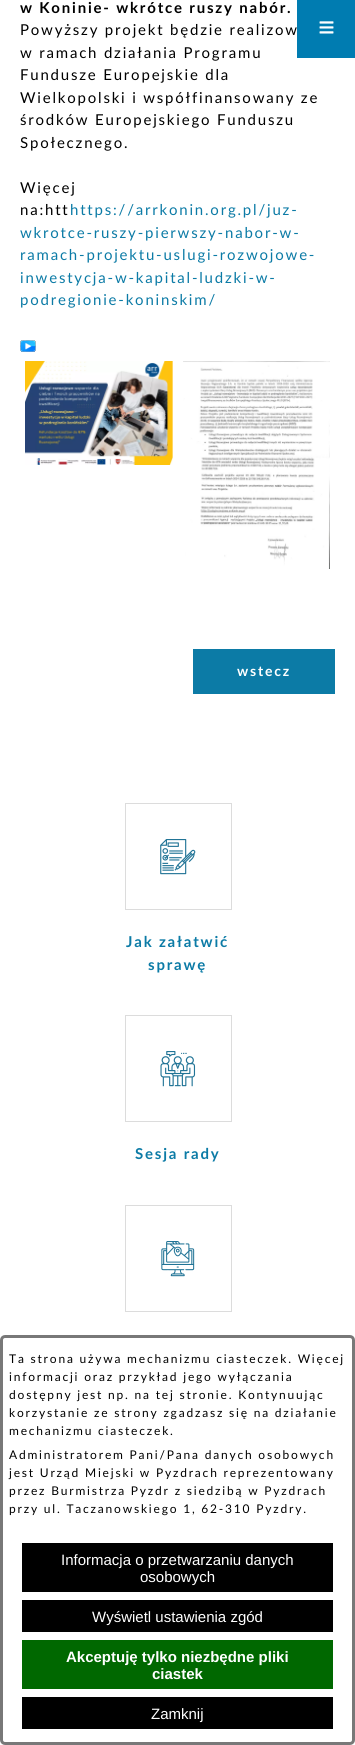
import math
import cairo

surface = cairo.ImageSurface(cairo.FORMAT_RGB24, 355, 1745)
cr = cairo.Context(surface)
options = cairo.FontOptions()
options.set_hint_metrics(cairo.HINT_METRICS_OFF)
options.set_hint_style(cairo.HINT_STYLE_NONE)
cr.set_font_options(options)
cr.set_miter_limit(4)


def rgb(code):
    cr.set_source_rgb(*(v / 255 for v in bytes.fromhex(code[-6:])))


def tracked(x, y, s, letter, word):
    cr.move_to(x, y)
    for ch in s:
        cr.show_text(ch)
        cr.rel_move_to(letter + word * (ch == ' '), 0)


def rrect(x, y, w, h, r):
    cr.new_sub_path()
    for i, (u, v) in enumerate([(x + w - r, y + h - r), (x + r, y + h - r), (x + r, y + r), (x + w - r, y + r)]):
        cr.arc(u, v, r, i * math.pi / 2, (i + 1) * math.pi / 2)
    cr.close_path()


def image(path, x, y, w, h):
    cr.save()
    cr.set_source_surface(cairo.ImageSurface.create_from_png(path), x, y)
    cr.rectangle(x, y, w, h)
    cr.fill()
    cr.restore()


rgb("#ffffff")
cr.paint()
image("img/1.png", 20, 340, 16, 12)
image("img/2.png", 25, 361, 148, 104)
image("img/3.png", 183, 361, 147, 208)
rgb("#0c7ba6")
cr.rectangle(193, 649, 142, 45)
cr.fill()
rgb("#007cb1")
cr.rectangle(297, 0, 58, 58)
cr.fill()
image("img/4.png", 319, 21, 15, 13)
cr.rectangle(125.5, 803.5, 106, 106)
rgb("#dcdcdc")
cr.set_line_width(1)
cr.stroke()
image("img/5.png", 160, 839, 36, 36)
cr.rectangle(125.5, 1015.5, 106, 106)
cr.stroke()
image("img/6.png", 160, 1051, 36, 36)
cr.rectangle(125.5, 1205.5, 106, 106)
cr.stroke()
image("img/7.png", 161, 1241, 34, 36)
rrect(1.5, 1336.5, 352, 407, 3.5)
rgb("#787878")
cr.set_line_width(3)
cr.stroke()
for x, y, w, h, color in [
    (22, 1543, 311, 49, "#000000"),
    (22, 1600, 311, 32, "#000000"),
    (22, 1640, 311, 49, "#006800"),
    (22, 1697, 311, 32, "#000000"),
]:
    rgb(color)
    cr.rectangle(x, y, w, h)
    cr.fill()
cr.select_font_face("Lato", cairo.FONT_SLANT_NORMAL, cairo.FONT_WEIGHT_BOLD)
cr.set_font_size(15)
tracked(20, 13, "w Koninie- wkrótce ruszy nabór.", 1.8, 0)
cr.select_font_face("Lato")
for x, y, s in [
    (20, 35, "Powyższy projekt będzie realizow"),
    (20, 58, "w ramach działania Programu"),
    (20, 80, "Fundusze Europejskie dla"),
    (20, 103, "Wielkopolski i współfinansowany ze"),
    (20, 125, "środków Europejskiego Funduszu"),
    (20, 148, "Społecznego."),
    (20, 193, "Więcej"),
    (20, 215, "na:htt"),
]:
    tracked(x, y, s, 1.8, 0)
rgb("#0c7ba6")
for x, y, s in [
    (70, 215, "https://arrkonin.org.pl/juz-"),
    (20, 238, "wkrotce-ruszy-pierwszy-nabor-w-"),
    (20, 260, "ramach-projektu-uslugi-rozwojowe-"),
    (20, 283, "inwestycja-w-kapital-ludzki-w-"),
    (20, 305, "podregionie-koninskim/"),
]:
    tracked(x, y, s, 1.8, 0)
cr.select_font_face("Lato", cairo.FONT_SLANT_NORMAL, cairo.FONT_WEIGHT_BOLD)
cr.set_font_size(14)
rgb("#ffffff")
tracked(237, 676, "wstecz", 1.8, 0)
cr.set_font_size(15)
rgb("#0c7ba6")
for x, y, s in [
    (126, 947, "Jak załatwić"),
    (148, 970, "sprawę"),
    (135, 1159, "Sesja rady"),
]:
    tracked(x, y, s, 1.8, 0)
cr.select_font_face("Lato")
cr.set_font_size(12)
rgb("#000000")
for x, y, s in [
    (9, 1363, "Ta strona używa mechanizmu ciasteczek. Więcej"),
    (9, 1381, "informacji oraz przykład jego wyłączania"),
    (9, 1399, "dostępny jest np. na tej stronie. Kontynuując"),
    (9, 1417, "korzystanie ze strony zgadzasz się na działanie"),
    (9, 1435, "mechanizmu ciasteczek."),
    (9, 1459, "Administratorem Pani/Pana danych osobowych"),
    (9, 1477, "jest Urząd Miejski w Pyzdrach reprezentowany"),
    (9, 1495, "przez Burmistrza Pyzdr z siedzibą w Pyzdrach"),
    (9, 1513, "przy ul. Taczanowskiego 1, 62-310 Pyzdry."),
]:
    tracked(x, y, s, 1.8, 0)
cr.select_font_face("Liberation Sans")
cr.set_font_size(15)
rgb("#ffffff")
for x, y, s in [
    (61, 1565, "Informacja o przetwarzaniu danych"),
    (140, 1582, "osobowych"),
    (92, 1622, "Wyświetl ustawienia zgód"),
]:
    cr.move_to(x, y)
    cr.show_text(s)
cr.select_font_face("Liberation Sans", cairo.FONT_SLANT_NORMAL, cairo.FONT_WEIGHT_BOLD)
cr.move_to(66, 1662)
cr.show_text("Akceptuję tylko niezbędne pliki")
cr.move_to(152, 1679)
cr.show_text("ciastek")
cr.select_font_face("Liberation Sans")
cr.move_to(151, 1719)
cr.show_text("Zamknij")
surface.write_to_png("page.png")
